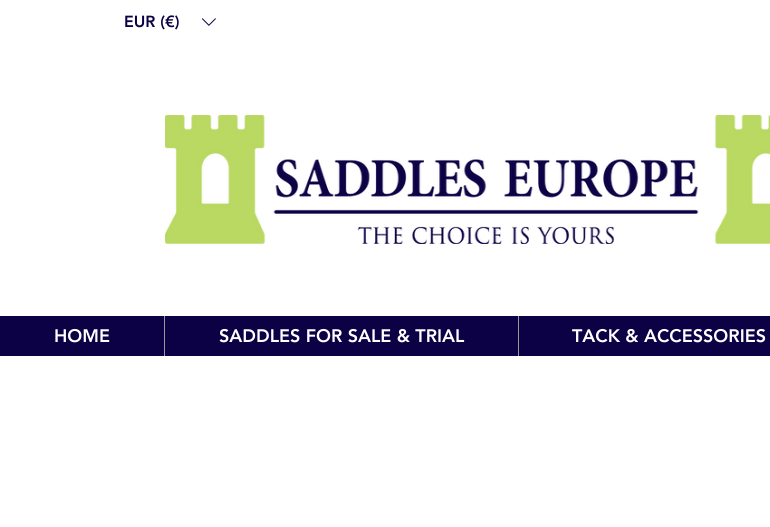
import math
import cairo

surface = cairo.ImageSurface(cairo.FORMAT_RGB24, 770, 527)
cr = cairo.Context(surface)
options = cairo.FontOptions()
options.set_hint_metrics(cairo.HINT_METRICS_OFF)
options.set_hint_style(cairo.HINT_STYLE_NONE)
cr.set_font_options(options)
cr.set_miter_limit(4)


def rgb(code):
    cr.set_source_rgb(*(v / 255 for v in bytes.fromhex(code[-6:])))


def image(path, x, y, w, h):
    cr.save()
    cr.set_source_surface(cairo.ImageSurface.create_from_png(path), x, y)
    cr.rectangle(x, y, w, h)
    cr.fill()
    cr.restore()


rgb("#ffffff")
cr.paint()
image("img/1.png", 201, 18, 15, 8)
image("img/2.png", 165, 115, 605, 129)
for x, y, w, h, color in [
    (0, 316, 770, 40, "#0c0145"),
    (164, 316, 1, 40, "#999999"),
    (518, 316, 1, 40, "#999999"),
]:
    rgb(color)
    cr.rectangle(x, y, w, h)
    cr.fill()
cr.select_font_face("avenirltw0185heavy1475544 Black")
cr.set_font_size(16)
rgb("#0c0145")
cr.move_to(124, 27)
cr.show_text("EUR (€)")
cr.set_font_size(18)
rgb("#ffffff")
for x, y, s in [
    (54, 342, "HOME"),
    (219, 342, "SADDLES FOR SALE & TRIAL"),
    (572, 342, "TACK & ACCESSORIES"),
]:
    cr.move_to(x, y)
    cr.show_text(s)
surface.write_to_png("page.png")
